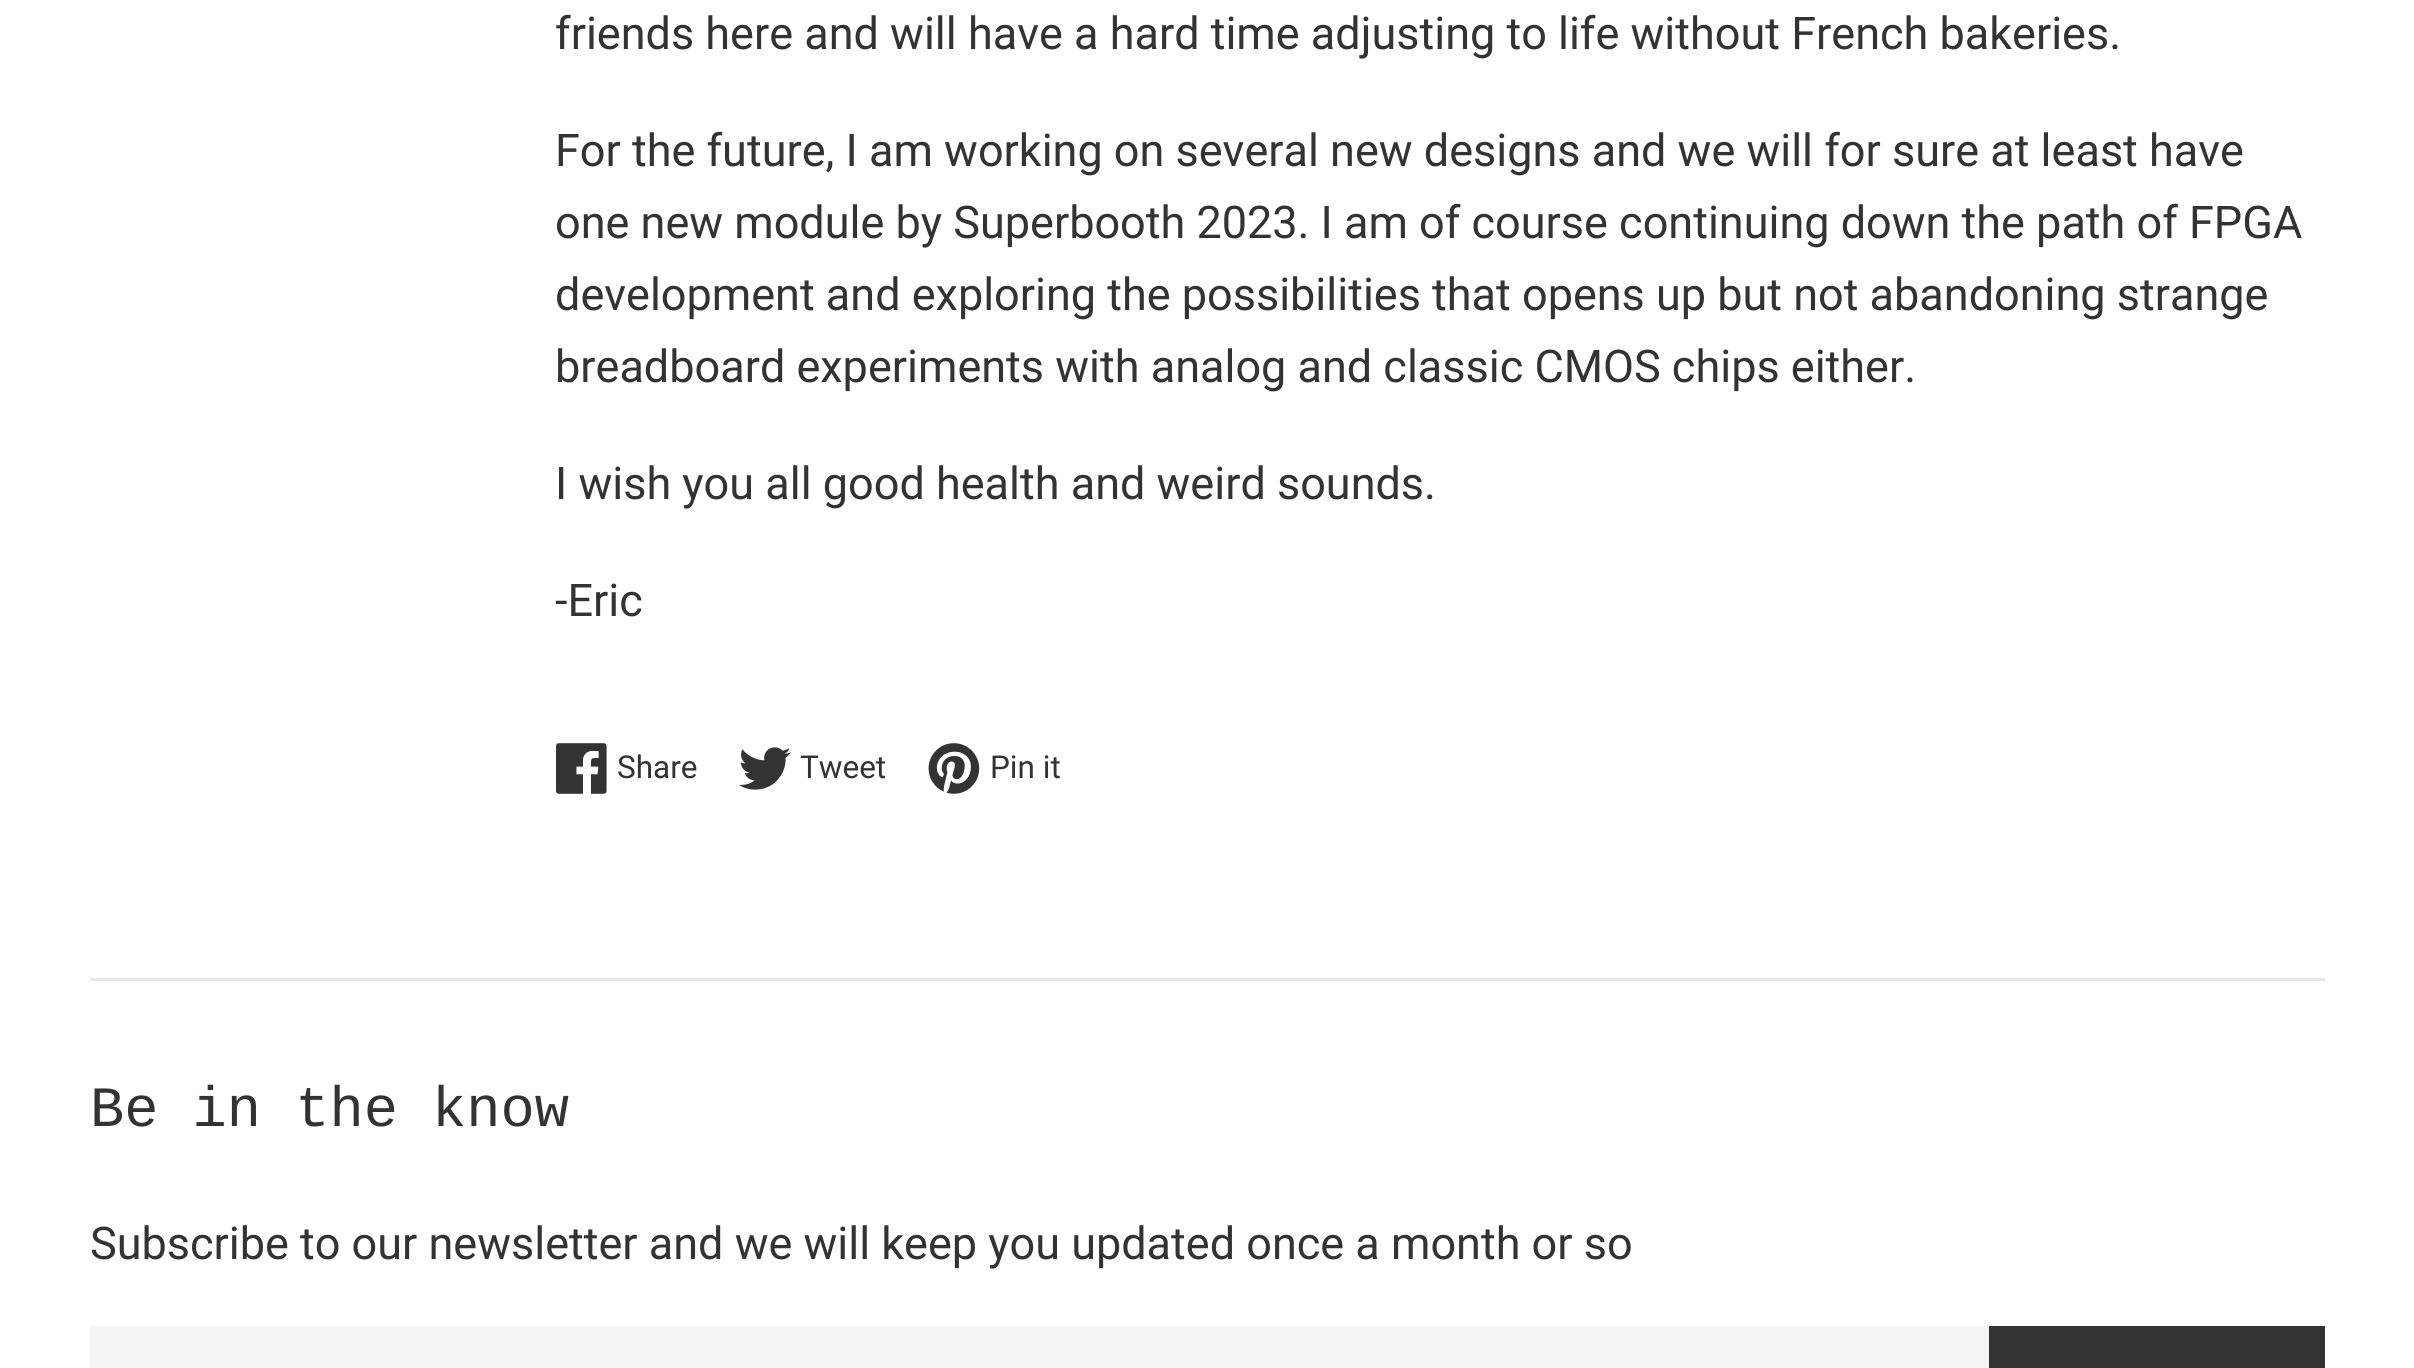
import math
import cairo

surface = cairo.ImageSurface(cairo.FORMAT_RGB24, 2414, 1368)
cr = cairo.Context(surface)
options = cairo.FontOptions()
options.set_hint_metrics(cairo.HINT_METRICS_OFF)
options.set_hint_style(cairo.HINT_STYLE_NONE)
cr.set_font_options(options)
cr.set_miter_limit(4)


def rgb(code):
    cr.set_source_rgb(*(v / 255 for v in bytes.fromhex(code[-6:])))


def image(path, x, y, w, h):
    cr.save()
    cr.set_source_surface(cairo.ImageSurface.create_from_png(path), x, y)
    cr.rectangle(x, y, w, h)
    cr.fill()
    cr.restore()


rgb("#ffffff")
cr.paint()
image("img/1.png", 556, 743, 51, 51)
image("img/2.png", 739, 747, 52, 43)
image("img/3.png", 928, 743, 52, 51)
for x, y, w, h, color in [
    (90, 978, 2235, 3, "#e8e8e8"),
    (90, 1326, 1899, 42, "#f4f4f4"),
    (1989, 1326, 336, 42, "#333333"),
]:
    rgb(color)
    cr.rectangle(x, y, w, h)
    cr.fill()
cr.select_font_face("Roboto")
cr.set_font_size(45)
for x, y, s in [
    (555, 49, "friends here and will have a hard time adjusting to life without French bakeries."),
    (555, 166, "For the future, I am working on several new designs and we will for sure at least have"),
    (555, 238, "one new module by Superbooth 2023. I am of course continuing down the path of FPGA"),
    (555, 310, "development and exploring the possibilities that opens up but not abandoning strange"),
    (555, 382, "breadboard experiments with analog and classic CMOS chips either."),
    (555, 499, "I wish you all good health and weird sounds."),
    (555, 616, "-Eric"),
]:
    cr.move_to(x, y)
    cr.show_text(s)
cr.set_font_size(31.5)
for x, y, s in [
    (617, 778, "Share"),
    (800, 778, "Tweet"),
    (990, 778, "Pin it"),
]:
    cr.move_to(x, y)
    cr.show_text(s)
cr.select_font_face("Liberation Mono")
cr.set_font_size(57)
cr.move_to(90, 1126)
cr.show_text("Be in the know")
cr.select_font_face("Roboto")
cr.set_font_size(45)
cr.move_to(90, 1259)
cr.show_text("Subscribe to our newsletter and we will keep you updated once a month or so")
surface.write_to_png("page.png")
